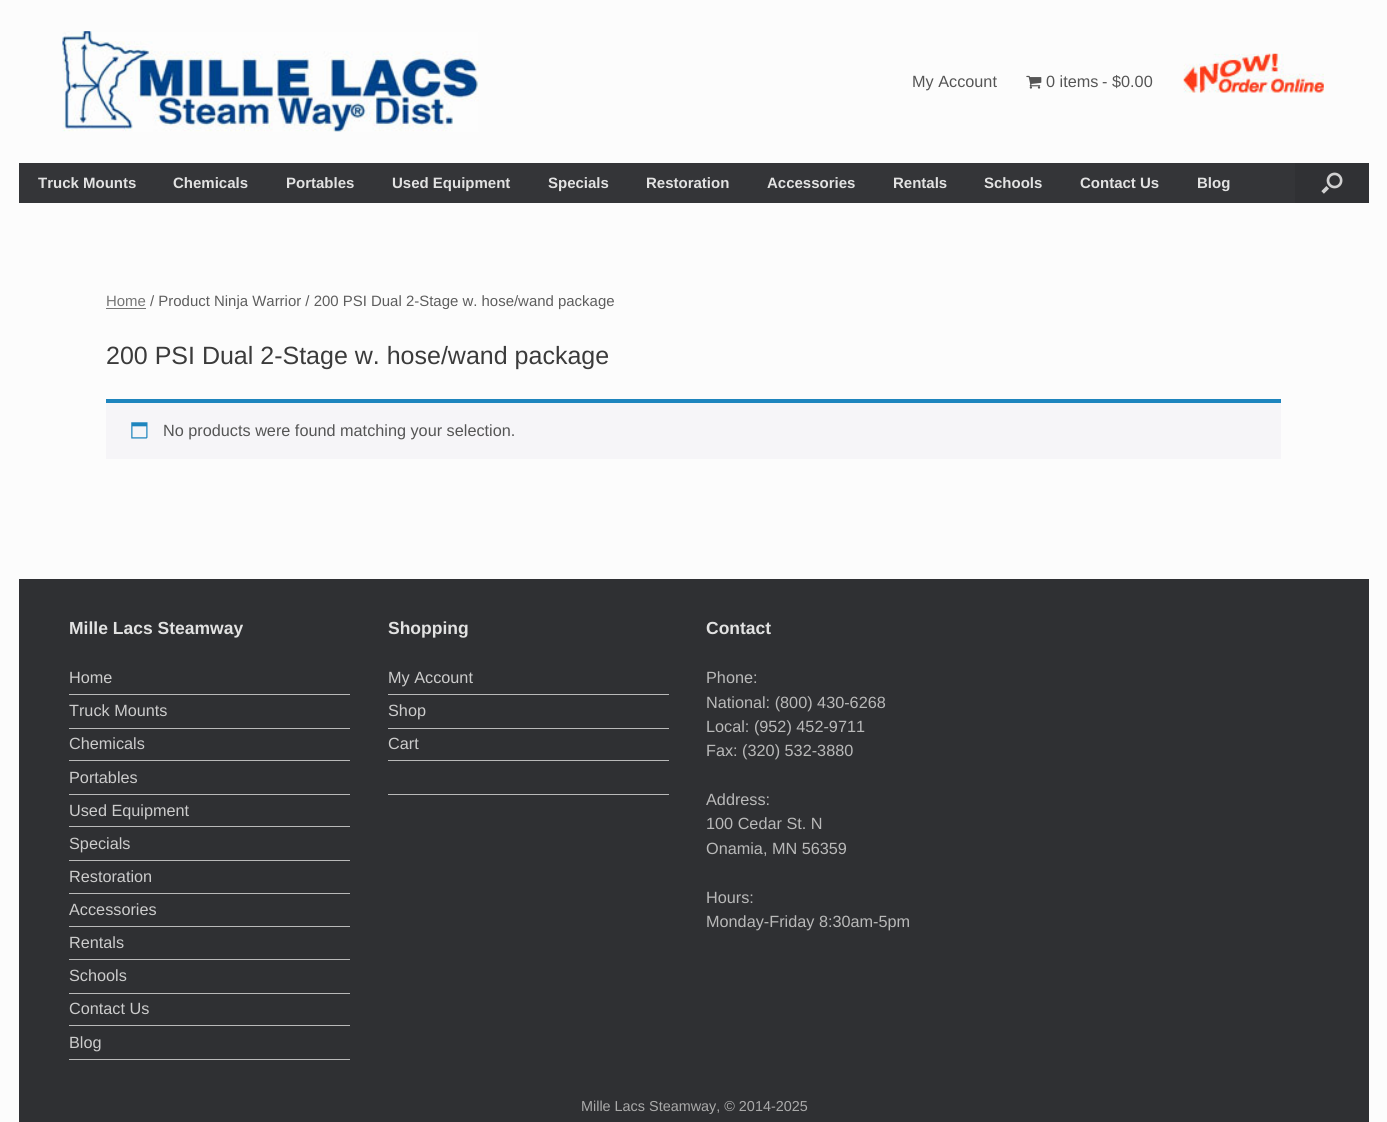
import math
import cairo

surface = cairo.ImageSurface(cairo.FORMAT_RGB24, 1387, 1122)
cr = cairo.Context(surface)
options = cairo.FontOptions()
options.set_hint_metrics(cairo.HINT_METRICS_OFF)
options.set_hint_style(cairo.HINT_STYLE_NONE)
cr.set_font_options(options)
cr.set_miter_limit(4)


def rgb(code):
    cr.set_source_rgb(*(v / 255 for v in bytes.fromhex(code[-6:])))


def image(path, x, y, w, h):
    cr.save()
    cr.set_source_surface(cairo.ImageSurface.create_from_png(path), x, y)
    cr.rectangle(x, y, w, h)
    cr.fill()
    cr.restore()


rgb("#fcfcfc")
cr.paint()
image("img/1.png", 62, 31, 417, 101)
image("img/2.png", 1026, 75, 16, 14)
image("img/3.png", 1183, 53, 141, 40)
rgb("#343538")
cr.rectangle(19, 163, 1276, 40)
cr.fill()
rgb("#303134")
cr.rectangle(1295, 163, 74, 40)
cr.fill()
image("img/4.png", 1321, 172, 22, 22)
for x, y, w, h, color in [
    (106, 308, 40, 1, "#767676"),
    (106, 403, 1175, 56, "#f6f5f8"),
    (106, 399, 1175, 4, "#1e85be"),
]:
    rgb(color)
    cr.rectangle(x, y, w, h)
    cr.fill()
image("img/5.png", 131, 422, 17, 17)
for x, y, w, h, color in [
    (19, 579, 1350, 543, "#2f3033"),
    (69, 694, 281, 1, "#b9b9b9"),
    (69, 728, 281, 1, "#b9b9b9"),
    (69, 760, 281, 1, "#b9b9b9"),
    (69, 794, 281, 1, "#b9b9b9"),
    (69, 826, 281, 1, "#b9b9b9"),
    (69, 860, 281, 1, "#b9b9b9"),
    (69, 893, 281, 1, "#b9b9b9"),
    (69, 926, 281, 1, "#b9b9b9"),
    (69, 959, 281, 1, "#b9b9b9"),
    (69, 993, 281, 1, "#b9b9b9"),
    (69, 1025, 281, 1, "#b9b9b9"),
    (69, 1059, 281, 1, "#b9b9b9"),
    (388, 694, 281, 1, "#b9b9b9"),
    (388, 728, 281, 1, "#b9b9b9"),
    (388, 760, 281, 1, "#b9b9b9"),
    (388, 794, 281, 1, "#b9b9b9"),
]:
    rgb(color)
    cr.rectangle(x, y, w, h)
    cr.fill()
cr.select_font_face("Liberation Sans")
cr.set_font_size(16.25)
rgb("#555555")
for x, y, s in [
    (912, 87, "My Account"),
    (1046, 87, "0 items"),
    (1102, 87, "-"),
    (1112, 87, "$0.00"),
]:
    cr.move_to(x, y)
    cr.show_text(s)
cr.select_font_face("Liberation Sans", cairo.FONT_SLANT_NORMAL, cairo.FONT_WEIGHT_BOLD)
cr.set_font_size(15)
rgb("#e2e2e2")
for x, y, s in [
    (38, 188, "Truck Mounts"),
    (173, 188, "Chemicals"),
    (286, 188, "Portables"),
    (392, 188, "Used Equipment"),
    (548, 188, "Specials"),
    (646, 188, "Restoration"),
    (767, 188, "Accessories"),
    (893, 188, "Rentals"),
    (984, 188, "Schools"),
    (1080, 188, "Contact Us"),
    (1197, 188, "Blog"),
]:
    cr.move_to(x, y)
    cr.show_text(s)
cr.select_font_face("Liberation Sans")
cr.set_font_size(14.95)
rgb("#767676")
cr.move_to(106, 306)
cr.show_text("Home")
rgb("#5e5e5e")
cr.move_to(150, 306)
cr.show_text("/ Product Ninja Warrior / 200 PSI Dual 2-Stage w. hose/wand package")
cr.set_font_size(25)
rgb("#3b3b3b")
cr.move_to(106, 364)
cr.show_text("200 PSI Dual 2-Stage w. hose/wand package")
cr.set_font_size(16.25)
rgb("#555555")
cr.move_to(163, 436)
cr.show_text("No products were found matching your selection.")
cr.select_font_face("Liberation Sans", cairo.FONT_SLANT_NORMAL, cairo.FONT_WEIGHT_BOLD)
cr.set_font_size(17.5)
rgb("#e2e2e2")
cr.move_to(69, 634)
cr.show_text("Mille Lacs Steamway")
cr.select_font_face("Liberation Sans")
cr.set_font_size(16.25)
rgb("#cccccc")
for x, y, s in [
    (69, 683, "Home"),
    (69, 716, "Truck Mounts"),
    (69, 749, "Chemicals"),
    (69, 783, "Portables"),
    (69, 816, "Used Equipment"),
    (69, 849, "Specials"),
    (69, 882, "Restoration"),
    (69, 915, "Accessories"),
    (69, 948, "Rentals"),
    (69, 981, "Schools"),
    (69, 1014, "Contact Us"),
    (69, 1048, "Blog"),
]:
    cr.move_to(x, y)
    cr.show_text(s)
cr.select_font_face("Liberation Sans", cairo.FONT_SLANT_NORMAL, cairo.FONT_WEIGHT_BOLD)
cr.set_font_size(17.5)
rgb("#e2e2e2")
cr.move_to(388, 634)
cr.show_text("Shopping")
cr.select_font_face("Liberation Sans")
cr.set_font_size(16.25)
rgb("#cccccc")
for x, y, s in [
    (388, 683, "My Account"),
    (388, 716, "Shop"),
    (388, 749, "Cart"),
]:
    cr.move_to(x, y)
    cr.show_text(s)
cr.select_font_face("Liberation Sans", cairo.FONT_SLANT_NORMAL, cairo.FONT_WEIGHT_BOLD)
cr.set_font_size(17.5)
rgb("#e2e2e2")
cr.move_to(706, 634)
cr.show_text("Contact")
cr.select_font_face("Liberation Sans")
cr.set_font_size(16.25)
rgb("#b9b9b9")
for x, y, s in [
    (706, 683, "Phone:"),
    (706, 708, "National: (800) 430-6268"),
    (706, 732, "Local: (952) 452-9711"),
    (706, 756, "Fax: (320) 532-3880"),
    (706, 805, "Address:"),
    (706, 829, "100 Cedar St. N"),
    (706, 854, "Onamia, MN 56359"),
    (706, 903, "Hours:"),
    (706, 927, "Monday-Friday 8:30am-5pm"),
]:
    cr.move_to(x, y)
    cr.show_text(s)
cr.set_font_size(14.4)
rgb("#aaaaaa")
cr.move_to(581, 1111)
cr.show_text("Mille Lacs Steamway, © 2014-2025")
surface.write_to_png("page.png")
